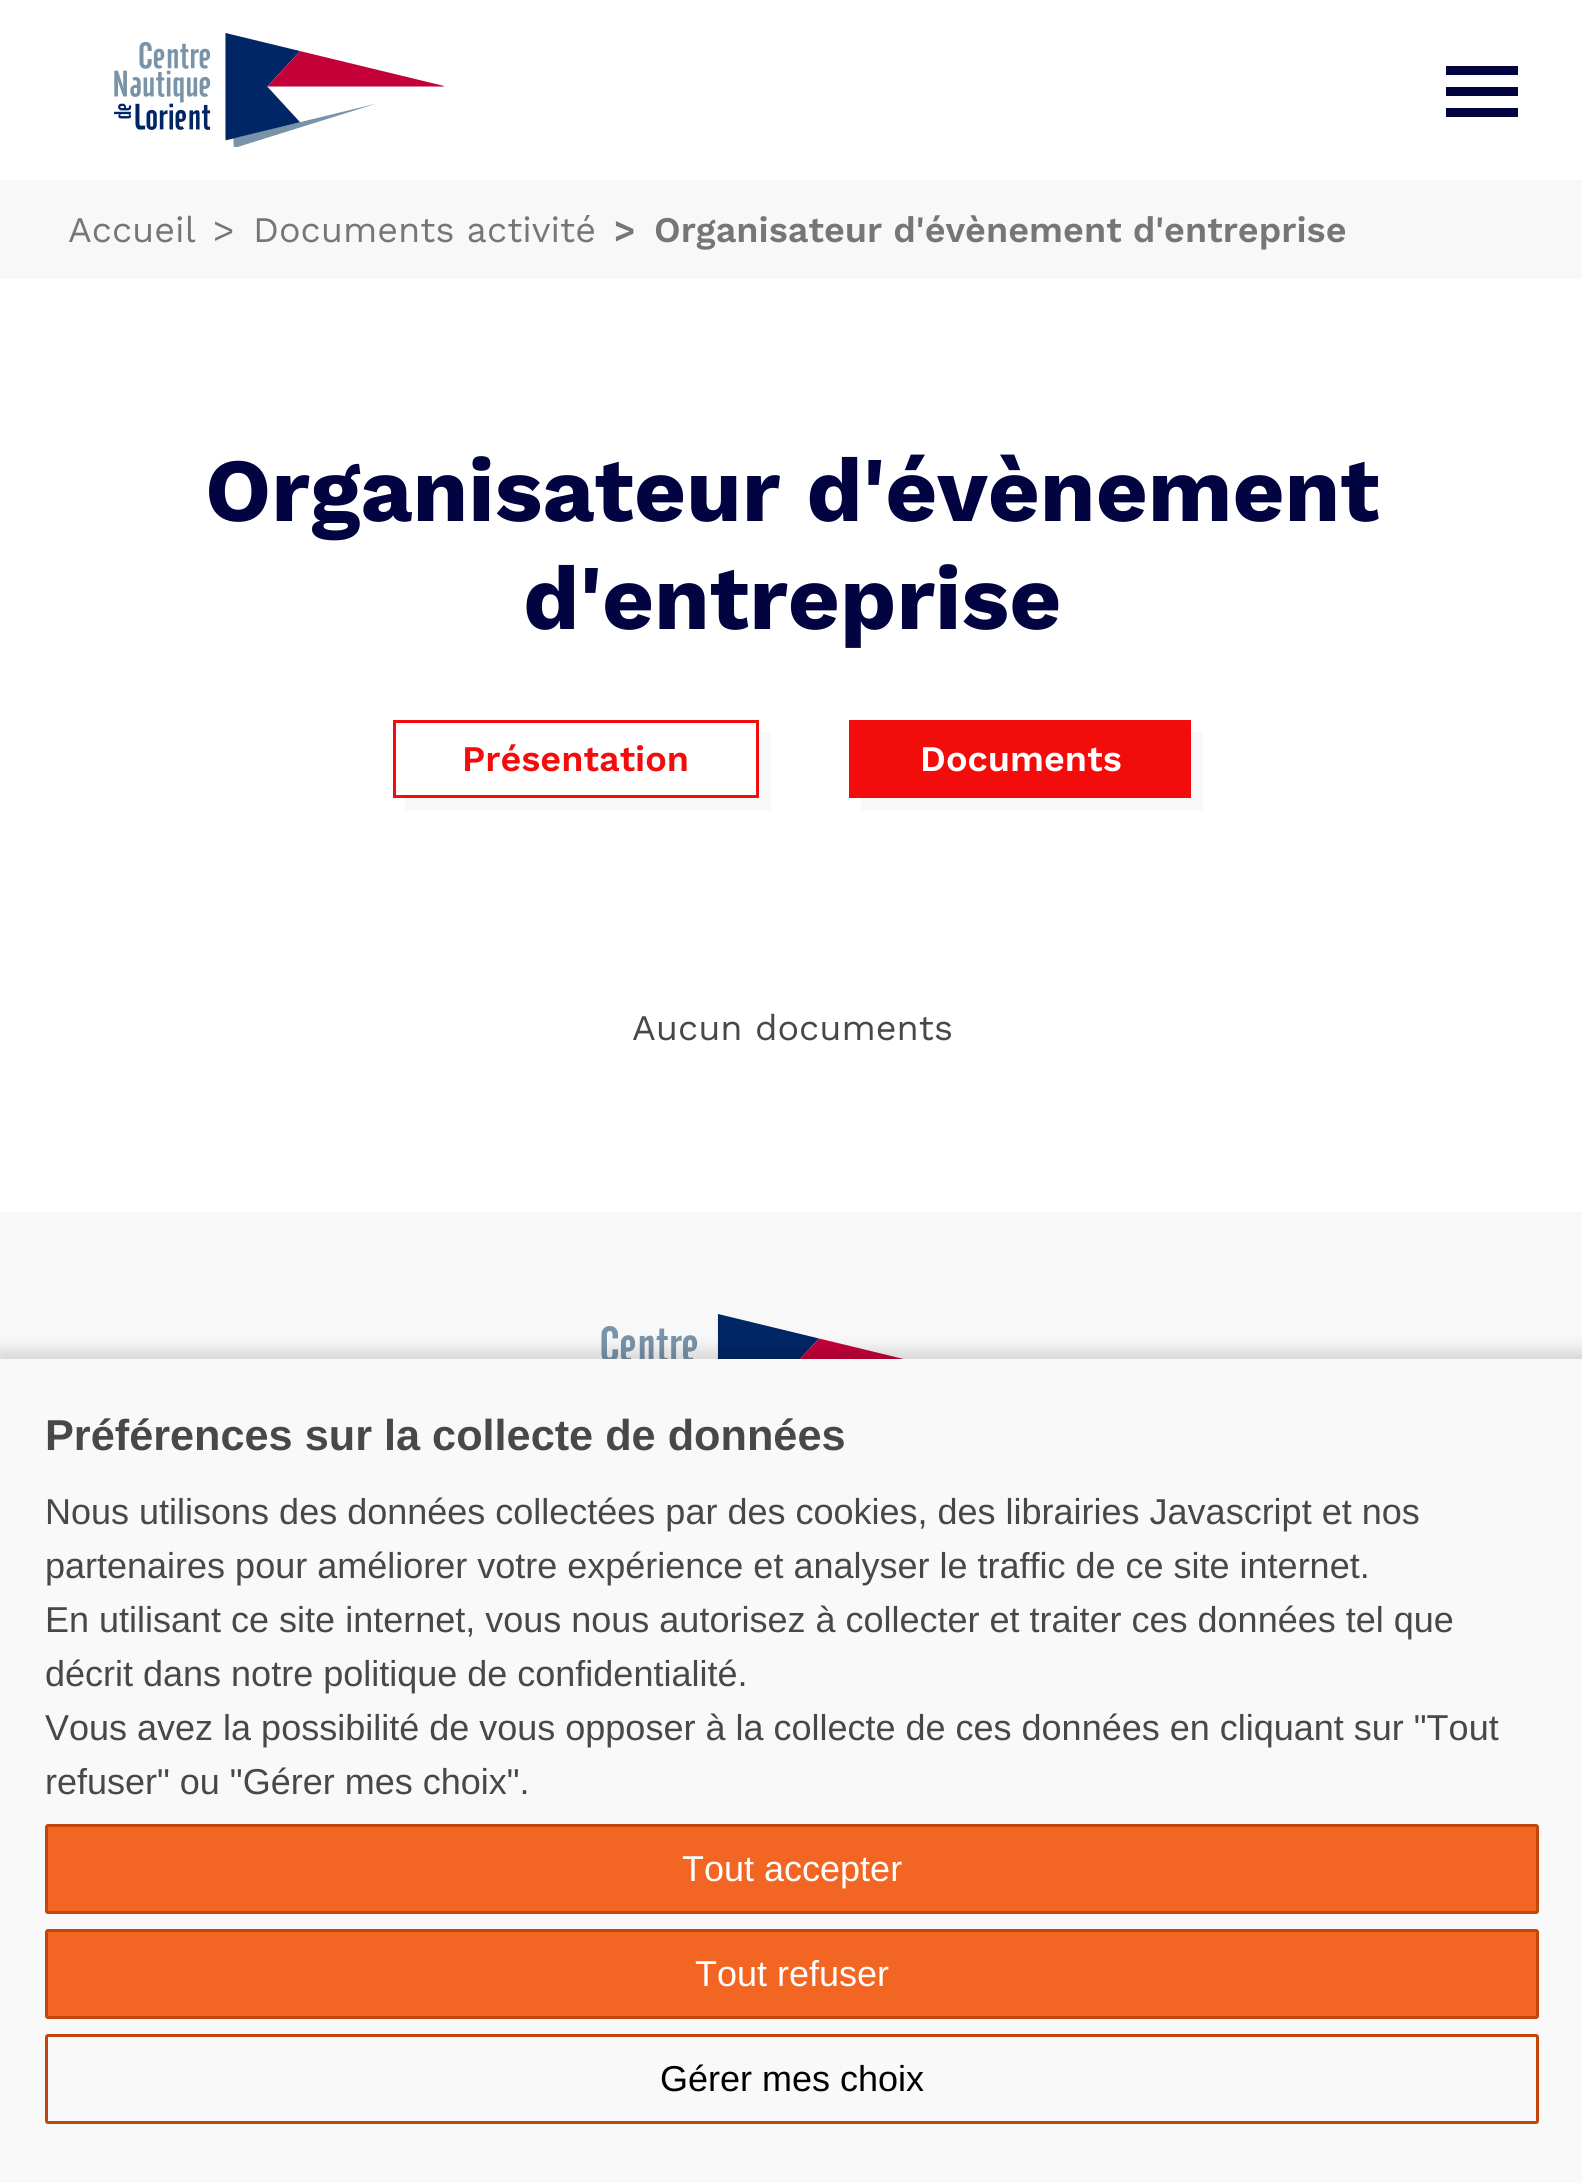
import math
import cairo

surface = cairo.ImageSurface(cairo.FORMAT_RGB24, 1582, 2183)
cr = cairo.Context(surface)
options = cairo.FontOptions()
options.set_hint_metrics(cairo.HINT_METRICS_OFF)
options.set_hint_style(cairo.HINT_STYLE_NONE)
cr.set_font_options(options)
cr.set_miter_limit(4)


def rgb(code):
    cr.set_source_rgb(*(v / 255 for v in bytes.fromhex(code[-6:])))


def rrect(x, y, w, h, r):
    cr.new_sub_path()
    for i, (u, v) in enumerate([(x + w - r, y + h - r), (x + r, y + h - r), (x + r, y + r), (x + w - r, y + r)]):
        cr.arc(u, v, r, i * math.pi / 2, (i + 1) * math.pi / 2)
    cr.close_path()


def soft_shadow(x, y, w, h, r, blur, alpha):
    cr.push_group_with_content(cairo.CONTENT_ALPHA)
    cr.set_operator(cairo.OPERATOR_SOURCE)
    for i in range(15, -16, -2):
        e = blur * i / 6
        if min(w, h) + 2 * e > 0:
            cr.set_source_rgba(0, 0, 0, alpha * math.erfc((i - 1) / 8.5) / 2)
            rrect(x - e, y - e, w + 2 * e, h + 2 * e, max(0, min(r + e + blur * .6, min(w, h) / 2 + e)))
            cr.fill()
    cr.mask(cr.pop_group())


def image(path, x, y, w, h):
    cr.save()
    cr.set_source_surface(cairo.ImageSurface.create_from_png(path), x, y)
    cr.rectangle(x, y, w, h)
    cr.fill()
    cr.restore()


rgb("#ffffff")
cr.paint()
image("img/1.png", 114, 33, 330, 114)
for x, y, w, h, color in [
    (1446, 108, 72, 9, "#020441"),
    (1446, 66, 72, 9, "#020441"),
    (1446, 87, 72, 9, "#020441"),
    (0, 180, 1582, 99, "#f8f8f8"),
]:
    rgb(color)
    cr.rectangle(x, y, w, h)
    cr.fill()
cr.new_path()
cr.move_to(405, 798)
cr.line_to(405, 810)
cr.line_to(771, 810)
cr.line_to(771, 732)
cr.line_to(759, 732)
cr.line_to(759, 798)
cr.close_path()
cr.fill()
cr.rectangle(394.5, 721.5, 363, 75)
rgb("#f20c0c")
cr.set_line_width(3)
cr.stroke()
rgb("#f8f8f8")
cr.new_path()
cr.move_to(861, 798)
cr.line_to(861, 810)
cr.line_to(1203, 810)
cr.line_to(1203, 732)
cr.line_to(1191, 732)
cr.line_to(1191, 798)
cr.close_path()
cr.fill()
rgb("#f20c0c")
cr.rectangle(849, 720, 342, 78)
cr.fill()
rgb("#f8f8f8")
cr.rectangle(0, 1212, 1582, 147)
cr.fill()
image("img/2.png", 601, 1314, 303, 45)
rgb("#000000")
soft_shadow(-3, 1350, 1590, 831, 0, 7.5, 0.14)
rgb("#f9f9f9")
cr.rectangle(0, 1359, 1582, 824)
cr.fill()
rgb("#f26522")
rrect(46.5, 1825.5, 1491, 87, 1.5)
cr.fill_preserve()
rgb("#c3460b")
cr.stroke()
rgb("#f26522")
rrect(46.5, 1930.5, 1491, 87, 1.5)
cr.fill_preserve()
rgb("#c3460b")
cr.stroke()
rrect(46.5, 2035.5, 1491, 87, 1.5)
cr.stroke()
cr.select_font_face("Work Sans")
cr.set_font_size(36)
rgb("#767676")
for x, y, s in [
    (68, 242, "Accueil"),
    (213, 242, ">"),
    (253, 242, "Documents activité"),
]:
    cr.move_to(x, y)
    cr.show_text(s)
cr.select_font_face("Work Sans SemiBold")
cr.move_to(614, 242)
cr.show_text(">")
cr.move_to(654, 242)
cr.show_text("Organisateur d'évènement d'entreprise")
cr.select_font_face("Work Sans", cairo.FONT_SLANT_NORMAL, cairo.FONT_WEIGHT_BOLD)
cr.set_font_size(90)
rgb("#020441")
cr.move_to(205, 521)
cr.show_text("Organisateur d'évènement")
cr.move_to(523, 629)
cr.show_text("d'entreprise")
cr.select_font_face("Work Sans SemiBold")
cr.set_font_size(36)
rgb("#f20c0c")
cr.move_to(462, 771)
cr.show_text("Présentation")
rgb("#ffffff")
cr.move_to(920, 771)
cr.show_text("Documents")
cr.select_font_face("Work Sans")
rgb("#484848")
cr.move_to(632, 1040)
cr.show_text("Aucun documents")
cr.select_font_face("Liberation Sans", cairo.FONT_SLANT_NORMAL, cairo.FONT_WEIGHT_BOLD)
cr.set_font_size(43.25)
cr.move_to(45, 1450)
cr.show_text("Préférences sur la collecte de données")
cr.select_font_face("Liberation Sans")
cr.set_font_size(36)
for x, y, s in [
    (45, 1524, "Nous utilisons des données collectées par des cookies, des librairies Javascript et nos"),
    (45, 1578, "partenaires pour améliorer votre expérience et analyser le traffic de ce site internet."),
    (45, 1632, "En utilisant ce site internet, vous nous autorisez à collecter et traiter ces données tel que"),
    (45, 1686, "décrit dans notre politique de confidentialité."),
    (45, 1740, "Vous avez la possibilité de vous opposer à la collecte de ces données en cliquant sur \"Tout"),
    (45, 1794, "refuser\" ou \"Gérer mes choix\"."),
]:
    cr.move_to(x, y)
    cr.show_text(s)
rgb("#ffffff")
cr.move_to(682, 1881)
cr.show_text("Tout accepter")
cr.move_to(695, 1986)
cr.show_text("Tout refuser")
rgb("#000000")
cr.move_to(660, 2091)
cr.show_text("Gérer mes choix")
surface.write_to_png("page.png")
